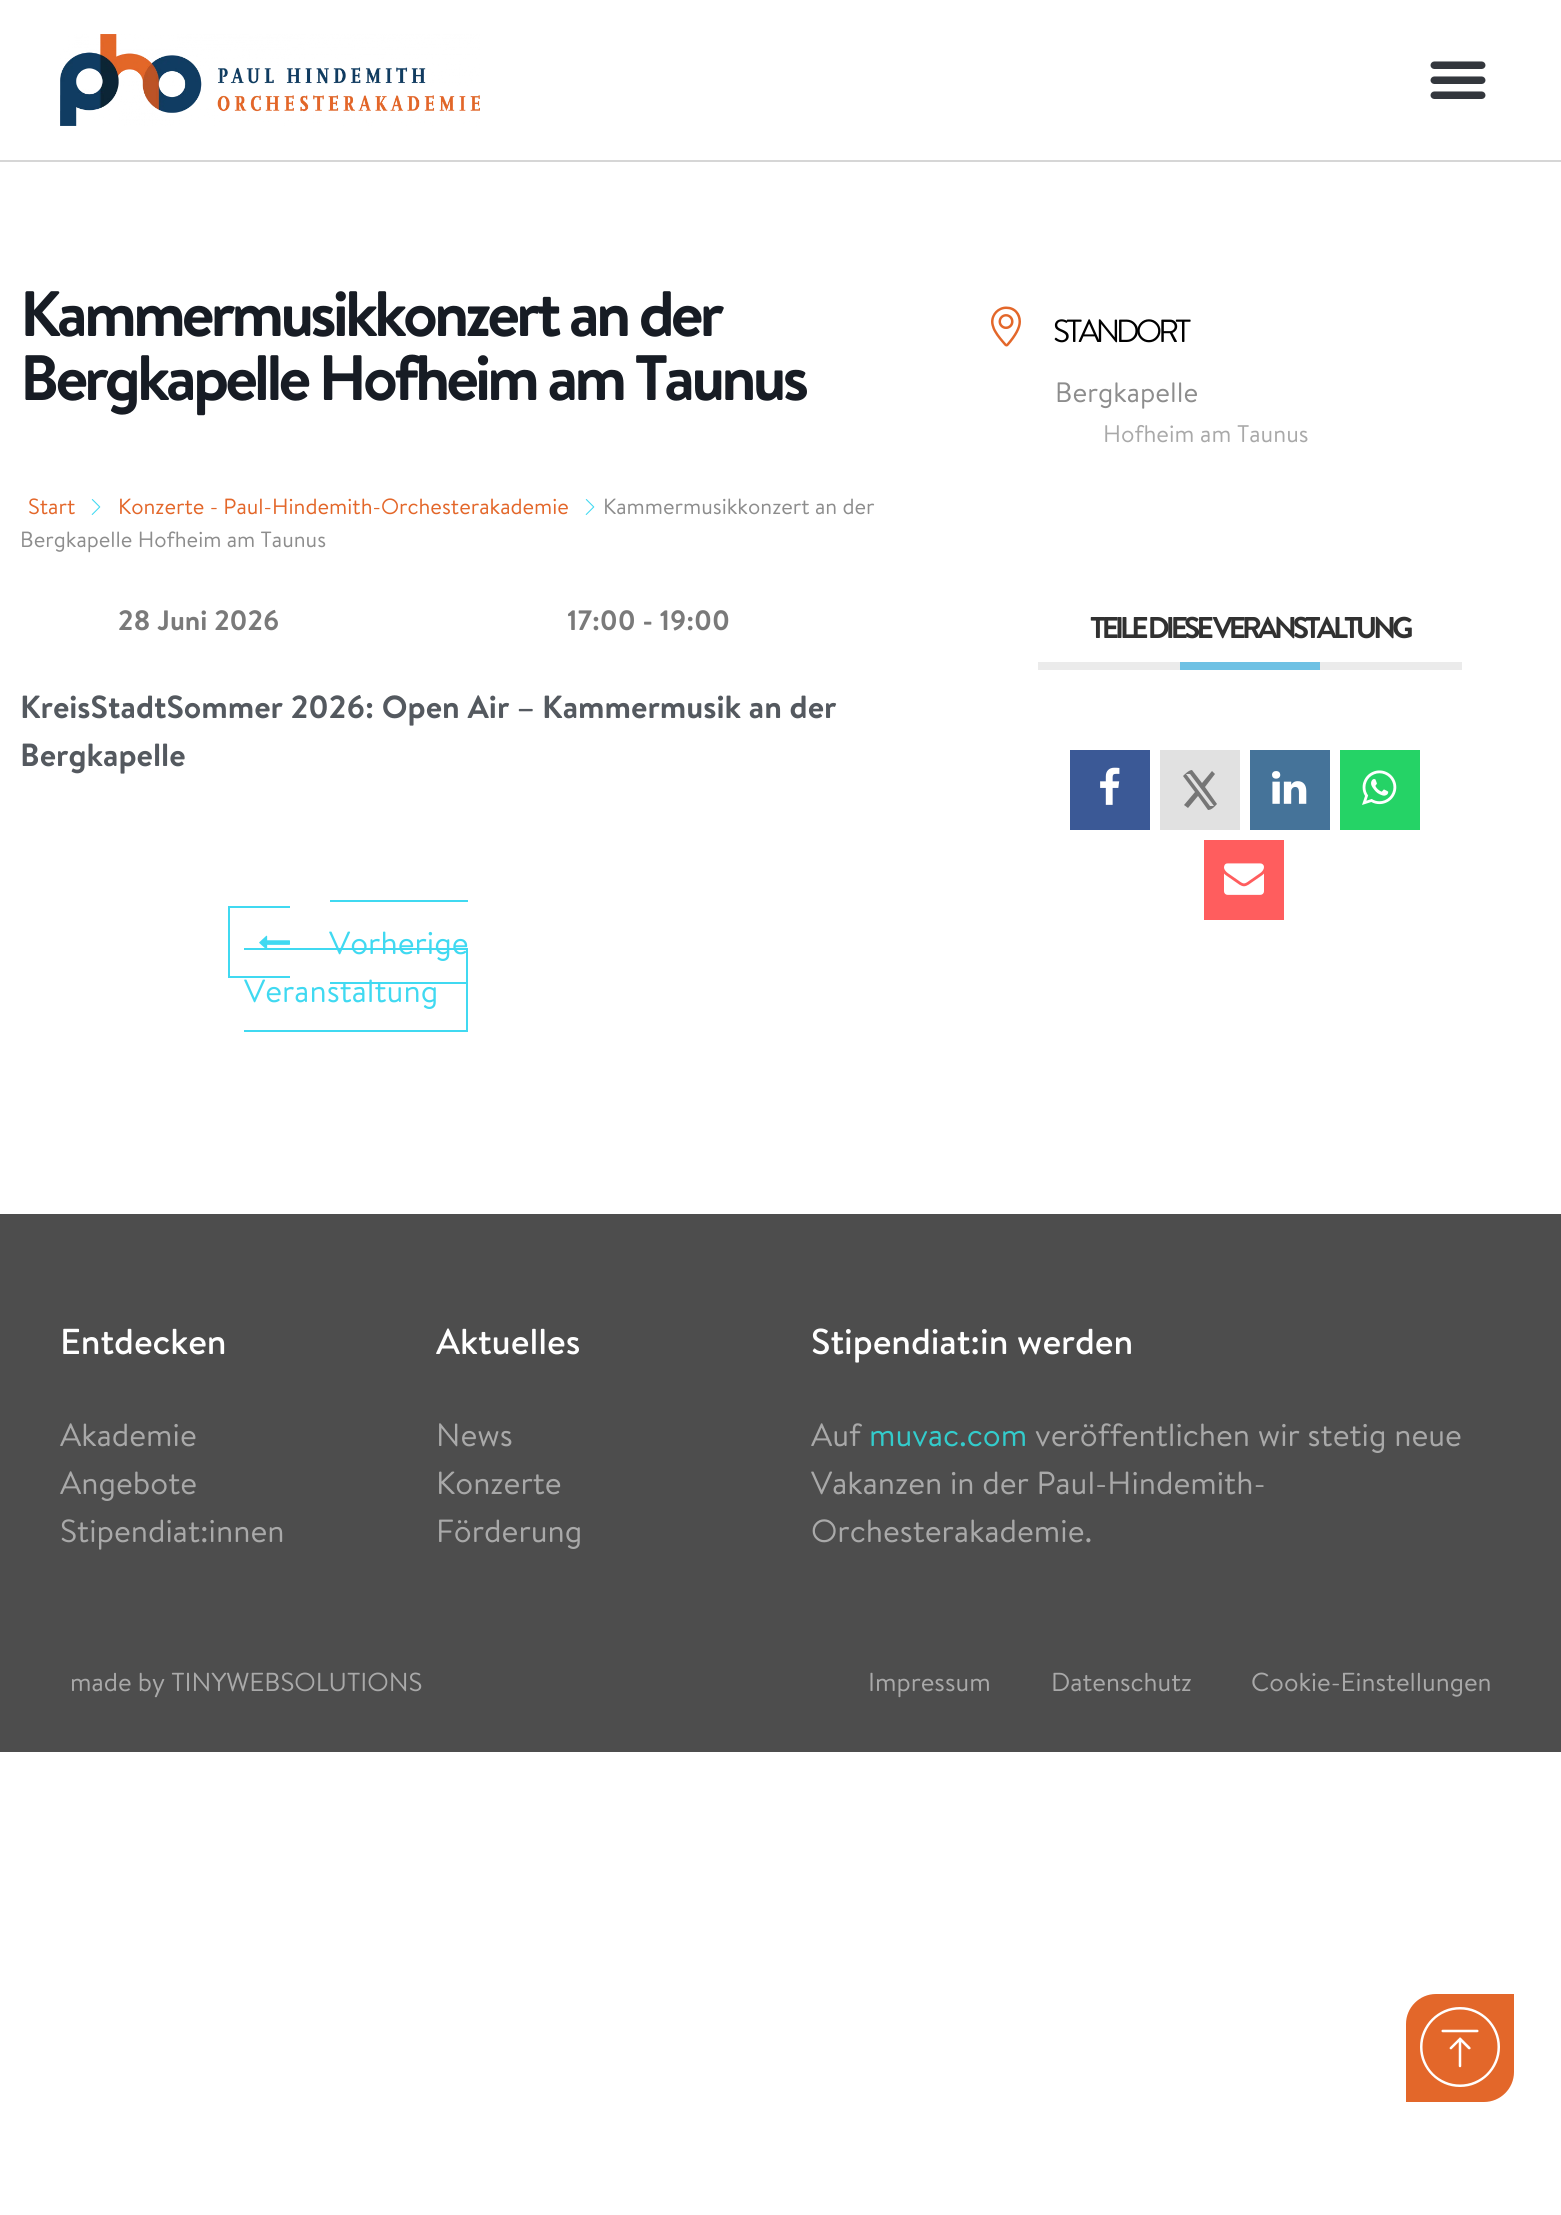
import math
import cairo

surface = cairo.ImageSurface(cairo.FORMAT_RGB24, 1561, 2215)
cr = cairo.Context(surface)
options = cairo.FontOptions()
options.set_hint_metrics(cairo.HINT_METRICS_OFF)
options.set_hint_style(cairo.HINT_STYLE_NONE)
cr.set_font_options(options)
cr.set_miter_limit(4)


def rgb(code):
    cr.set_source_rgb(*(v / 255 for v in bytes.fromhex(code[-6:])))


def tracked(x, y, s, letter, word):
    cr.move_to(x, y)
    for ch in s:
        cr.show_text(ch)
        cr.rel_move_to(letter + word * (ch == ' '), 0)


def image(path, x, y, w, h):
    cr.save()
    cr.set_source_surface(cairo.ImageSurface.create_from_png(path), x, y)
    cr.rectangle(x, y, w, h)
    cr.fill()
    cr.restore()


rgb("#ffffff")
cr.paint()
rgb("#d6d6d6")
cr.rectangle(0, 160, 1561, 2)
cr.fill()
image("img/1.png", 60, 34, 420, 92)
image("img/2.png", 1430, 61, 56, 38)
image("img/3.png", 91, 499, 10, 16)
image("img/3.png", 585, 499, 10, 16)
image("img/4.png", 259, 935, 31, 13)
for x, y, w, h, color in [
    (228, 906, 62, 2, "#40d9f1"),
    (228, 976, 62, 2, "#40d9f1"),
    (228, 906, 2, 72, "#40d9f1"),
    (330, 900, 138, 2, "#40d9f1"),
    (244, 948, 224, 2, "#40d9f1"),
    (330, 982, 138, 2, "#40d9f1"),
    (466, 948, 2, 84, "#40d9f1"),
    (244, 1030, 224, 2, "#40d9f1"),
]:
    rgb(color)
    cr.rectangle(x, y, w, h)
    cr.fill()
image("img/5.png", 991, 306, 30, 41)
for x, y, w, h, color in [
    (1038, 662, 424, 8, "#ebebeb"),
    (1180, 662, 140, 8, "#6ec1e4"),
    (1070, 750, 80, 80, "#3b5996"),
]:
    rgb(color)
    cr.rectangle(x, y, w, h)
    cr.fill()
image("img/6.png", 1100, 767, 20, 38)
rgb("#e1e1e1")
cr.rectangle(1160, 750, 80, 80)
cr.fill()
rgb("#767676")
cr.set_fill_rule(cairo.FILL_RULE_EVEN_ODD)
cr.new_path()
cr.move_to(1183, 776)
cr.curve_to(1185, 774, 1189, 770, 1192, 770)
cr.line_to(1202, 783)
cr.line_to(1212, 771)
cr.line_to(1215, 774)
cr.line_to(1205, 787)
cr.line_to(1217, 804)
cr.curve_to(1215, 806, 1212, 810, 1208, 810)
cr.line_to(1198, 796)
cr.line_to(1188, 808)
cr.line_to(1184, 805)
cr.line_to(1195, 792)
cr.close_path()
cr.move_to(1210, 806)
cr.line_to(1186, 774)
cr.line_to(1190, 774)
cr.line_to(1214, 806)
cr.close_path()
cr.fill()
rgb("#457399")
cr.rectangle(1250, 750, 80, 80)
cr.fill()
image("img/7.png", 1272, 771, 35, 33)
rgb("#25d366")
cr.rectangle(1340, 750, 80, 80)
cr.fill()
image("img/8.png", 1362, 770, 35, 35)
rgb("#ff5d5e")
cr.rectangle(1204, 840, 80, 80)
cr.fill()
image("img/9.png", 1224, 863, 40, 32)
rgb("#4d4d4d")
cr.rectangle(0, 1214, 1561, 538)
cr.fill()
rgb("#e3672a")
cr.new_path()
cr.move_to(1436, 1994)
cr.line_to(1514, 1994)
cr.line_to(1514, 2072)
cr.curve_to(1514, 2088.5, 1500.5, 2102, 1484, 2102)
cr.line_to(1406, 2102)
cr.line_to(1406, 2024)
cr.curve_to(1406, 2007.5, 1419.5, 1994, 1436, 1994)
cr.close_path()
cr.fill()
image("img/10.png", 1420, 2007, 80, 80)
cr.select_font_face("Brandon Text", cairo.FONT_SLANT_NORMAL, cairo.FONT_WEIGHT_BOLD)
cr.set_font_size(64)
rgb("#171c24")
tracked(20, 336, "Kammermusikkonzert an der", -4, 0)
tracked(20, 400, "Bergkapelle Hofheim am Taunus", -4, 0)
cr.select_font_face("Brandon Text")
cr.set_font_size(22)
rgb("#e3672a")
cr.move_to(28, 514)
cr.show_text("Start")
cr.move_to(118, 514)
cr.show_text("Konzerte - Paul-Hindemith-Orchesterakademie")
rgb("#8d8d8d")
cr.move_to(603, 514)
cr.show_text("Kammermusikkonzert an der")
cr.move_to(20, 547)
cr.show_text("Bergkapelle Hofheim am Taunus")
cr.select_font_face("Brandon Text", cairo.FONT_SLANT_NORMAL, cairo.FONT_WEIGHT_BOLD)
cr.set_font_size(28)
rgb("#7a7a7a")
cr.move_to(118, 630)
cr.show_text("28 Juni 2026")
cr.move_to(567, 630)
cr.show_text("17:00 - 19:00")
cr.set_font_size(32)
rgb("#54595f")
cr.move_to(20, 718)
cr.show_text("KreisStadtSommer 2026: Open Air – Kammermusik an der")
cr.move_to(20, 766)
cr.show_text("Bergkapelle")
cr.select_font_face("Brandon Text")
rgb("#40d9f1")
cr.move_to(329, 954)
cr.show_text("Vorherige")
cr.move_to(244, 1002)
cr.show_text("Veranstaltung")
rgb("#000000")
tracked(1053, 342, "STANDORT", -4, 0)
cr.set_font_size(28)
rgb("#8d8d8d")
cr.move_to(1055, 402)
cr.show_text("Bergkapelle")
cr.set_font_size(24)
rgb("#a9a9a9")
cr.move_to(1103, 442)
cr.show_text("Hofheim am Taunus")
cr.select_font_face("Brandon Text", cairo.FONT_SLANT_NORMAL, cairo.FONT_WEIGHT_BOLD)
cr.set_font_size(30)
rgb("#313131")
tracked(1090, 638, "TEILE DIESE VERANSTALTUNG", -4, 0)
cr.select_font_face("Brandon Text Medium")
cr.set_font_size(36)
rgb("#ffffff")
cr.move_to(60, 1354)
cr.show_text("Entdecken")
cr.select_font_face("Brandon Text")
cr.set_font_size(32)
rgb("#a9a9a9")
for x, y, s in [
    (60, 1446, "Akademie"),
    (60, 1494, "Angebote"),
    (60, 1542, "Stipendiat:innen"),
]:
    cr.move_to(x, y)
    cr.show_text(s)
cr.select_font_face("Brandon Text Medium")
cr.set_font_size(36)
rgb("#ffffff")
cr.move_to(436, 1354)
cr.show_text("Aktuelles")
cr.select_font_face("Brandon Text")
cr.set_font_size(32)
rgb("#a9a9a9")
for x, y, s in [
    (436, 1446, "News"),
    (436, 1494, "Konzerte"),
    (436, 1542, "Förderung"),
]:
    cr.move_to(x, y)
    cr.show_text(s)
cr.select_font_face("Brandon Text Medium")
cr.set_font_size(36)
rgb("#ffffff")
cr.move_to(811, 1354)
cr.show_text("Stipendiat:in werden")
cr.select_font_face("Brandon Text")
cr.set_font_size(32)
rgb("#a9a9a9")
cr.move_to(811, 1446)
cr.show_text("Auf")
rgb("#33cccc")
cr.move_to(869, 1446)
cr.show_text("muvac.com")
rgb("#a9a9a9")
for x, y, s in [
    (1035, 1446, "veröffentlichen wir stetig neue"),
    (811, 1494, "Vakanzen in der Paul-Hindemith-"),
    (811, 1542, "Orchesterakademie."),
]:
    cr.move_to(x, y)
    cr.show_text(s)
cr.set_font_size(26)
for x, y, s in [
    (70, 1691, "made by TINYWEBSOLUTIONS"),
    (868, 1691, "Impressum"),
    (1051, 1691, "Datenschutz"),
    (1251, 1691, "Cookie-Einstellungen"),
]:
    cr.move_to(x, y)
    cr.show_text(s)
surface.write_to_png("page.png")
